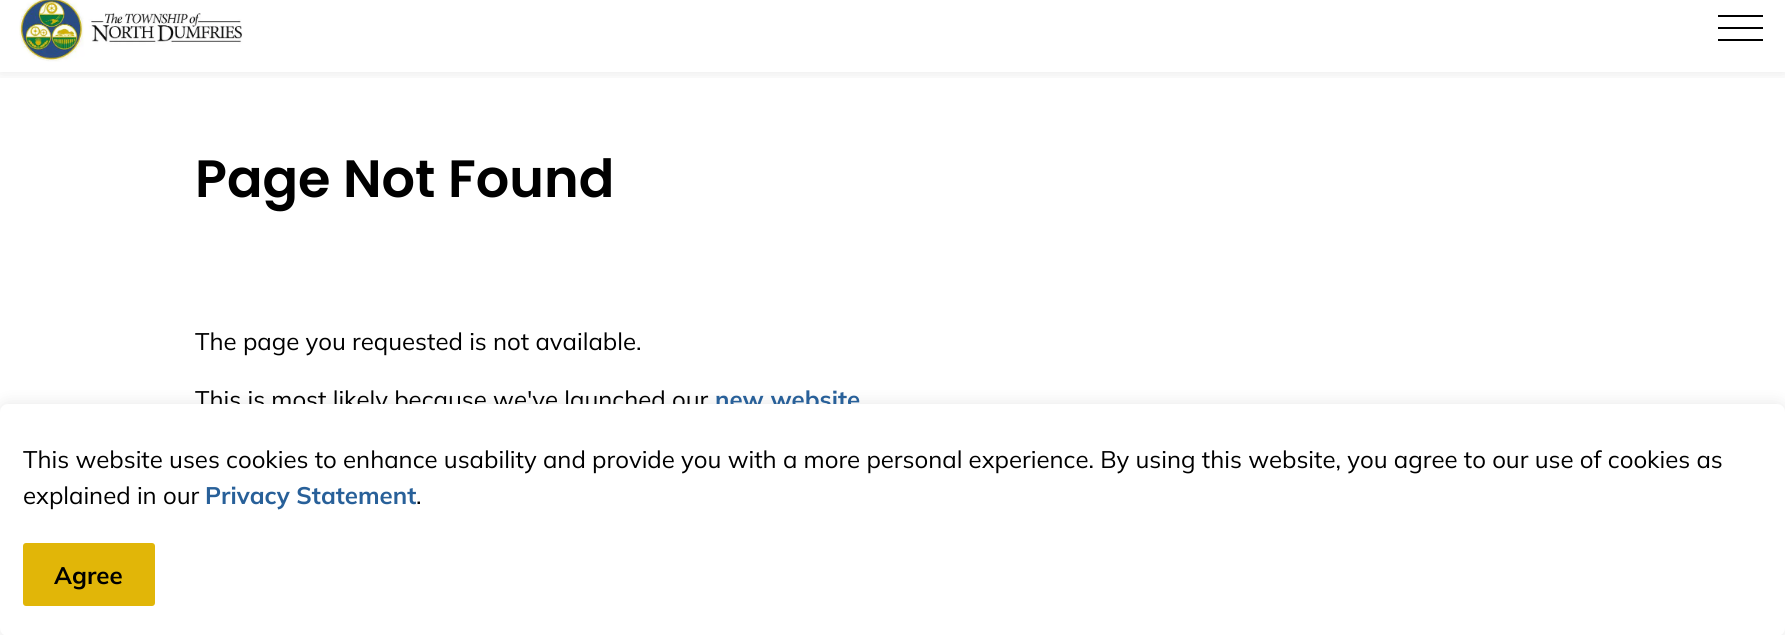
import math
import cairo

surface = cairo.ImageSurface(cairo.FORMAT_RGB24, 1785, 635)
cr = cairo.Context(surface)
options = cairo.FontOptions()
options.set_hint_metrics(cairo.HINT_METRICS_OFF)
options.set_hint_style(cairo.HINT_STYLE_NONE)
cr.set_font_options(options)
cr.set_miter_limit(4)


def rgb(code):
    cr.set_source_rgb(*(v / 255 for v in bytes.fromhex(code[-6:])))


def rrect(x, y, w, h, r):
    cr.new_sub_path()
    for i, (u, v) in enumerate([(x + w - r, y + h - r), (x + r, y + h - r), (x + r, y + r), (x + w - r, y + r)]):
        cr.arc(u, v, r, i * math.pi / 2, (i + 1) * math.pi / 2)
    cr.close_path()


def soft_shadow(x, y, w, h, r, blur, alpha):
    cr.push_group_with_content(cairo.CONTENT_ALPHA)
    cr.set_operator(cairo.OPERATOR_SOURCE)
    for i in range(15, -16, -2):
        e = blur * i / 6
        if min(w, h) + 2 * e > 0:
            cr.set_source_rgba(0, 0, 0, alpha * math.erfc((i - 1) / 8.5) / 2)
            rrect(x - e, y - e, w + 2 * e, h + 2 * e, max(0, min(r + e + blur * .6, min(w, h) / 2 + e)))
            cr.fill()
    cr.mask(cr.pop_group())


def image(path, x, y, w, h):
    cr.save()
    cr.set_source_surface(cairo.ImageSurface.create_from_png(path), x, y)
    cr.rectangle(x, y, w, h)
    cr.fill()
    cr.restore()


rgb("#ffffff")
cr.paint()
cr.save()
cr.rectangle(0, 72, 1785, 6)
cr.clip()
rgb("#000000")
soft_shadow(0, -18, 1785, 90, 0, 7.5, 0.1)
cr.restore()
image("img/1.png", 19, 0, 224, 62)
for x, y, w, h, color in [
    (1718, 27, 45, 2, "#000000"),
    (1718, 15, 45, 2, "#000000"),
    (1718, 39, 45, 2, "#000000"),
]:
    rgb(color)
    cr.rectangle(x, y, w, h)
    cr.fill()
rgb("#000000")
soft_shadow(0, 404, 1785, 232, 8, 7.5, 0.1)
cr.select_font_face("Poppins SemiBold")
cr.set_font_size(52.5)
rgb("#000000")
cr.move_to(195, 197)
cr.show_text("Page Not Found")
cr.select_font_face("Mulish")
cr.set_font_size(24)
cr.move_to(195, 350)
cr.show_text("The page you requested is not available.")
cr.move_to(195, 408)
cr.show_text("This is most likely because we've launched our")
cr.select_font_face("Mulish", cairo.FONT_SLANT_NORMAL, cairo.FONT_WEIGHT_BOLD)
rgb("#286099")
cr.move_to(715, 408)
cr.show_text("new website")
rgb("#ffffff")
rrect(0, 404, 1785, 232, 8)
cr.fill()
cr.select_font_face("Mulish")
rgb("#000000")
cr.move_to(23, 468)
cr.show_text("This website uses cookies to enhance usability and provide you with a more personal experience. By using this website, you agree to our use of cookies as")
cr.move_to(23, 504)
cr.show_text("explained in our")
cr.select_font_face("Mulish", cairo.FONT_SLANT_NORMAL, cairo.FONT_WEIGHT_BOLD)
rgb("#286099")
cr.move_to(205, 504)
cr.show_text("Privacy Statement")
cr.select_font_face("Mulish")
rgb("#000000")
cr.move_to(416, 504)
cr.show_text(".")
rgb("#e1b608")
rrect(24, 544, 130, 61, 2)
cr.fill_preserve()
cr.stroke()
cr.select_font_face("Mulish", cairo.FONT_SLANT_NORMAL, cairo.FONT_WEIGHT_BOLD)
rgb("#000000")
cr.move_to(54, 584)
cr.show_text("Agree")
surface.write_to_png("page.png")
